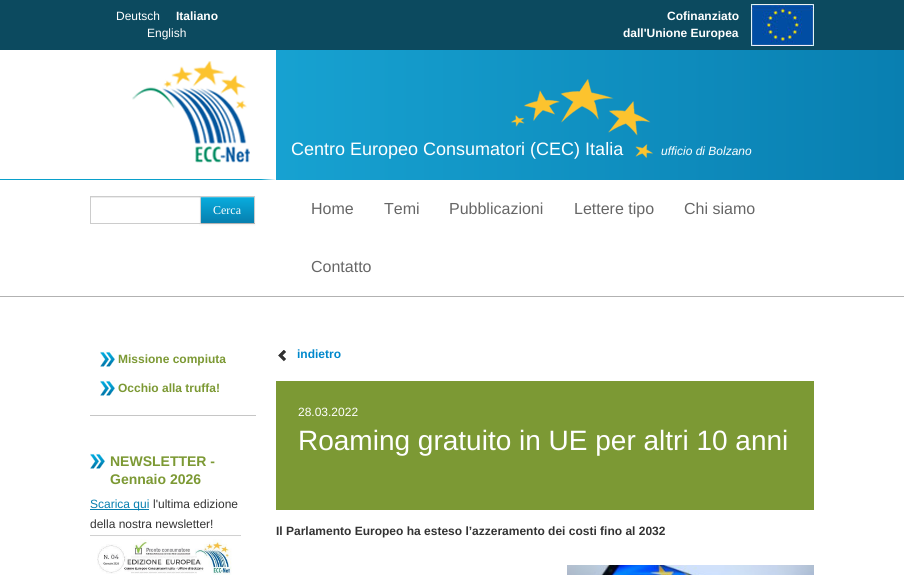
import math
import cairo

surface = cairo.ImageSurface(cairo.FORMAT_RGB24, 904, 575)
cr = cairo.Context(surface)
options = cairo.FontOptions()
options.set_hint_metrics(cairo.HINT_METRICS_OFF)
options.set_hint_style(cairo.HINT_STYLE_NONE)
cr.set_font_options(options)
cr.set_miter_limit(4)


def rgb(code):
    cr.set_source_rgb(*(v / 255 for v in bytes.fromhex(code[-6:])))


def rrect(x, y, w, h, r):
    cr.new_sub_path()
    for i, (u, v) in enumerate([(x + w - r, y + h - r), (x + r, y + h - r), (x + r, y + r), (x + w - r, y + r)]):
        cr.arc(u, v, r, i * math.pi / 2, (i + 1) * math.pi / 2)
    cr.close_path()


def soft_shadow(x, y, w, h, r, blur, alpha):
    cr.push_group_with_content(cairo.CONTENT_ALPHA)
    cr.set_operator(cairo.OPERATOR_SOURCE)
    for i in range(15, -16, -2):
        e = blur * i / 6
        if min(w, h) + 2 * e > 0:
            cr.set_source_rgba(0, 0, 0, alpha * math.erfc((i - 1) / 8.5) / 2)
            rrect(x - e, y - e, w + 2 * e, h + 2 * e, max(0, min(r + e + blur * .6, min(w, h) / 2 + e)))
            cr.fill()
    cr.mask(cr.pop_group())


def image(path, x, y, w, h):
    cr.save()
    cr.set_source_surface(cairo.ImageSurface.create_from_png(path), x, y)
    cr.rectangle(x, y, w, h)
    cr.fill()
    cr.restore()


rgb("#ffffff")
cr.paint()
gradient = cairo.LinearGradient(0, 90, 904, 90)
gradient.add_color_stop_rgba(0, 0.114, 0.694, 0.875, 1)
gradient.add_color_stop_rgba(1, 0.035, 0.498, 0.694, 1)
cr.set_source(gradient)
cr.rectangle(276, 50, 628, 130)
cr.fill()
rgb("#0c4a5f")
cr.rectangle(0, 0, 904, 50)
cr.fill()
image("img/1.png", 751, 4, 63, 42)
image("img/2.png", 132, 61, 118, 102)
rgb("#09a0cb")
cr.new_path()
cr.move_to(276, 180)
cr.line_to(-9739, 180)
cr.line_to(-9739, 179)
cr.line_to(261, 179)
cr.close_path()
cr.fill()
image("img/3.png", 511, 79, 142, 79)
rgb("#b2b2b2")
cr.rectangle(0, 296, 904, 1)
cr.fill()
rgb("#ececec")
cr.rectangle(91, 197, 109, 1)
cr.fill()
cr.rectangle(90.5, 196.5, 110, 27)
rgb("#cccccc")
cr.set_line_width(1)
cr.stroke()
rgb("#000000")
soft_shadow(200, 197, 55, 28, 0, 1, 0.05)
gradient = cairo.LinearGradient(228, 197, 228, 223)
gradient.add_color_stop_rgba(0, 0.031, 0.678, 0.871, 1)
gradient.add_color_stop_rgba(1, 0.027, 0.498, 0.686, 1)
cr.set_source(gradient)
cr.rectangle(201, 198, 53, 25)
cr.fill()
for x, y, w, h, color in [
    (201, 197, 53, 1, "#39bde4"),
    (200, 196, 55, 1, "#cccccc"),
    (254, 196, 1, 28, "#cccccc"),
    (200, 223, 55, 1, "#b3b3b3"),
    (200, 196, 1, 28, "#cccccc"),
    (90, 415, 166, 1, "#c6c6c6"),
]:
    rgb(color)
    cr.rectangle(x, y, w, h)
    cr.fill()
image("img/4.png", 100, 351, 15, 16)
image("img/4.png", 100, 380, 15, 16)
image("img/4.png", 90, 453, 15, 16)
rgb("#077faf")
cr.rectangle(90, 509, 59, 1)
cr.fill()
image("img/5.png", 90, 535, 151, 40)
image("img/6.png", 278, 350, 8, 12)
rgb("#7c9934")
cr.rectangle(276, 381, 538, 129)
cr.fill()
image("img/7.png", 567, 565, 247, 10)
cr.select_font_face("Liberation Sans")
cr.set_font_size(12)
rgb("#ffffff")
cr.move_to(116, 20)
cr.show_text("Deutsch")
cr.select_font_face("Liberation Sans", cairo.FONT_SLANT_NORMAL, cairo.FONT_WEIGHT_BOLD)
cr.move_to(176, 20)
cr.show_text("Italiano")
cr.select_font_face("Liberation Sans")
cr.move_to(147, 37)
cr.show_text("English")
cr.select_font_face("Liberation Sans", cairo.FONT_SLANT_NORMAL, cairo.FONT_WEIGHT_BOLD)
cr.move_to(667, 20)
cr.show_text("Cofinanziato")
cr.move_to(623, 37)
cr.show_text("dall'Unione Europea")
cr.select_font_face("Liberation Sans")
cr.set_font_size(18)
cr.move_to(291, 155)
cr.show_text("Centro Europeo Consumatori (CEC) Italia")
cr.select_font_face("Liberation Sans", cairo.FONT_SLANT_ITALIC)
cr.set_font_size(12)
cr.move_to(661, 155)
cr.show_text("ufficio di Bolzano")
cr.select_font_face("Liberation Serif")
cr.move_to(213, 214)
cr.show_text("Cerca")
cr.select_font_face("Liberation Sans")
cr.set_font_size(16)
rgb("#666666")
for x, y, s in [
    (311, 214, "Home"),
    (384, 214, "Temi"),
    (449, 214, "Pubblicazioni"),
    (574, 214, "Lettere tipo"),
    (684, 214, "Chi siamo"),
    (311, 272, "Contatto"),
]:
    cr.move_to(x, y)
    cr.show_text(s)
cr.select_font_face("Liberation Sans", cairo.FONT_SLANT_NORMAL, cairo.FONT_WEIGHT_BOLD)
cr.set_font_size(12)
rgb("#7c9934")
cr.move_to(118, 363)
cr.show_text("Missione compiuta")
cr.move_to(118, 392)
cr.show_text("Occhio alla truffa!")
cr.set_font_size(14)
cr.move_to(110, 466)
cr.show_text("NEWSLETTER -")
cr.move_to(110, 484)
cr.show_text("Gennaio 2026")
cr.select_font_face("Liberation Sans")
cr.set_font_size(12)
rgb("#077faf")
cr.move_to(90, 508)
cr.show_text("Scarica qui")
rgb("#333333")
cr.move_to(153, 508)
cr.show_text("l'ultima edizione")
cr.move_to(90, 528)
cr.show_text("della nostra newsletter!")
cr.select_font_face("Liberation Sans", cairo.FONT_SLANT_NORMAL, cairo.FONT_WEIGHT_BOLD)
rgb("#0088cc")
cr.move_to(297, 358)
cr.show_text("indietro")
cr.select_font_face("Liberation Sans")
rgb("#ffffff")
cr.move_to(298, 416)
cr.show_text("28.03.2022")
cr.set_font_size(28)
cr.move_to(298, 450)
cr.show_text("Roaming gratuito in UE per altri 10 anni")
cr.select_font_face("Liberation Sans", cairo.FONT_SLANT_NORMAL, cairo.FONT_WEIGHT_BOLD)
cr.set_font_size(12)
rgb("#333333")
cr.move_to(276, 535)
cr.show_text("Il Parlamento Europeo ha esteso l’azzeramento dei costi fino al 2032")
surface.write_to_png("page.png")
